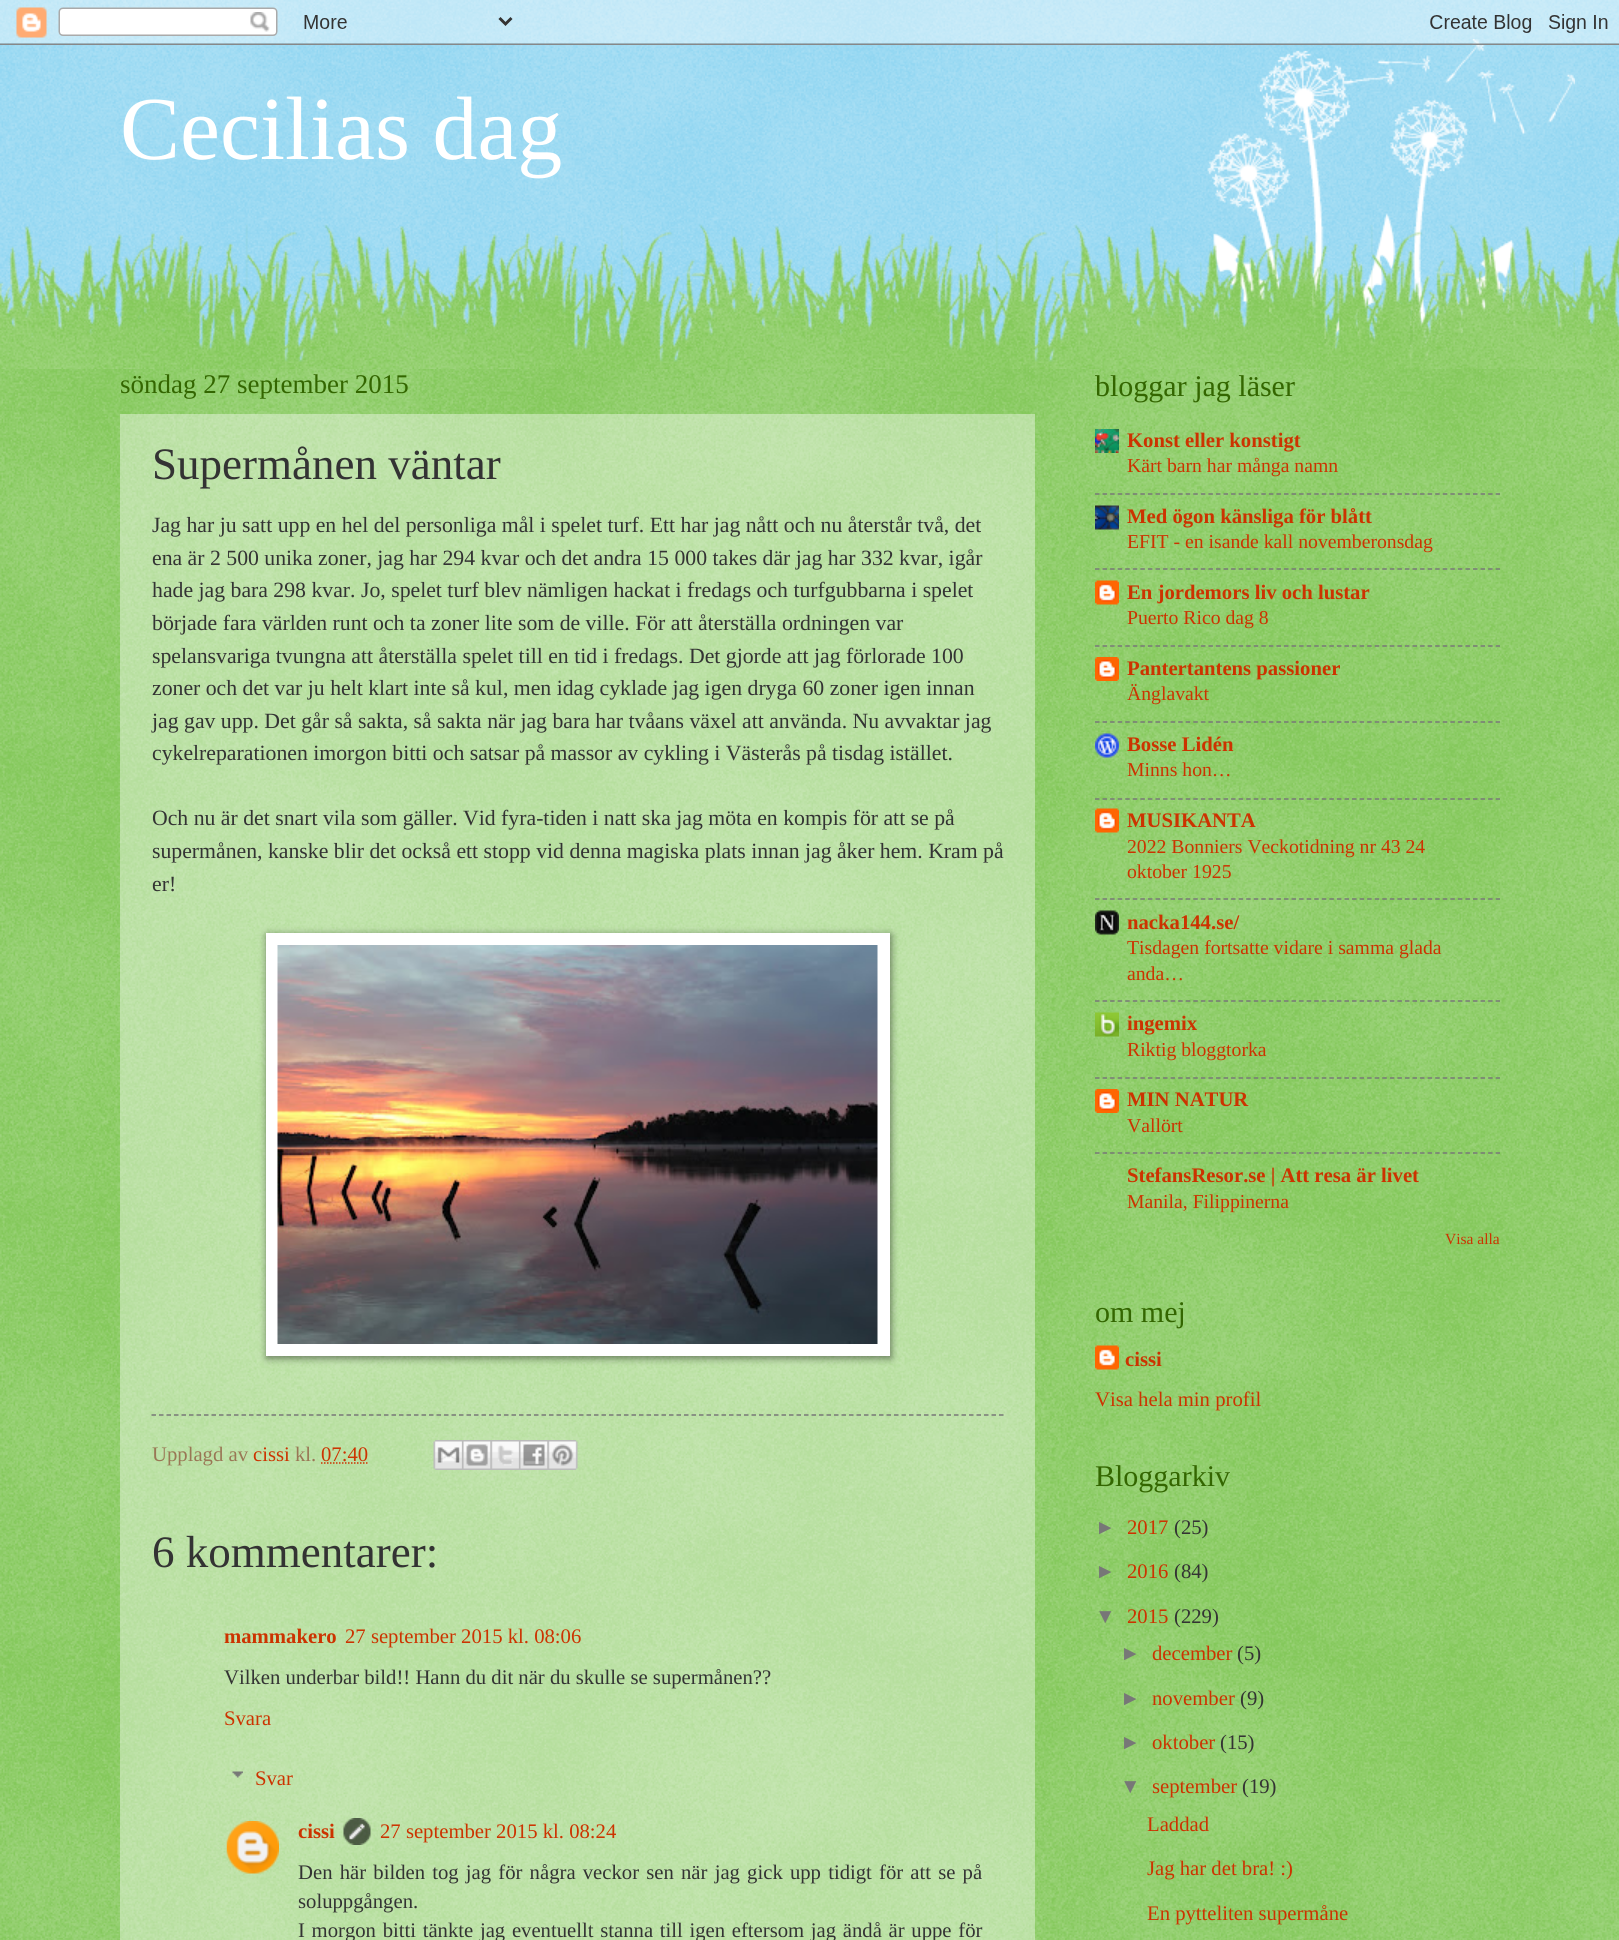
import math
import cairo

surface = cairo.ImageSurface(cairo.FORMAT_RGB24, 1619, 1940)
cr = cairo.Context(surface)
options = cairo.FontOptions()
options.set_hint_metrics(cairo.HINT_METRICS_OFF)
options.set_hint_style(cairo.HINT_STYLE_NONE)
cr.set_font_options(options)
cr.set_miter_limit(4)


def rgb(code):
    cr.set_source_rgb(*(v / 255 for v in bytes.fromhex(code[-6:])))


def tracked(x, y, s, letter, word):
    cr.move_to(x, y)
    for ch in s:
        cr.show_text(ch)
        cr.rel_move_to(letter + word * (ch == ' '), 0)


def rrect(x, y, w, h, r):
    cr.new_sub_path()
    for i, (u, v) in enumerate([(x + w - r, y + h - r), (x + r, y + h - r), (x + r, y + r), (x + w - r, y + r)]):
        cr.arc(u, v, r, i * math.pi / 2, (i + 1) * math.pi / 2)
    cr.close_path()


def soft_shadow(x, y, w, h, r, blur, alpha):
    cr.push_group_with_content(cairo.CONTENT_ALPHA)
    cr.set_operator(cairo.OPERATOR_SOURCE)
    for i in range(15, -16, -2):
        e = blur * i / 6
        if min(w, h) + 2 * e > 0:
            cr.set_source_rgba(0, 0, 0, alpha * math.erfc((i - 1) / 8.5) / 2)
            rrect(x - e, y - e, w + 2 * e, h + 2 * e, max(0, min(r + e + blur * .6, min(w, h) / 2 + e)))
            cr.fill()
    cr.mask(cr.pop_group())


def image(path, x, y, w, h):
    cr.save()
    cr.set_source_surface(cairo.ImageSurface.create_from_png(path), x, y)
    cr.rectangle(x, y, w, h)
    cr.fill()
    cr.restore()


rgb("#77ccee")
cr.paint()
image("img/1.png", 0, 0, 1619, 362)
image("img/4.png", 1200, 39, 375, 323)
image("img/2.png", 0, 0, 1619, 45)
rgb("#66bb33")
cr.rectangle(0, 369, 1619, 1571)
cr.fill()
image("img/3.png", 0, 369, 1619, 1571)
image("img/5.png", 0, 224, 1619, 145)
cr.set_source_rgba(1, 1, 1, 0.4)
cr.rectangle(120, 414, 915, 1526)
cr.fill()
rgb("#000000")
soft_shadow(267, 935, 624, 423, 0, 4, 0.5)
rgb("#ffffff")
cr.rectangle(266, 933, 624, 423)
cr.fill()
image("img/6.png", 277, 945, 601, 399)
cr.new_path()
cr.move_to(151.5, 1415)
cr.line_to(1003.5, 1415)
rgb("#777777")
cr.set_line_width(1.5)
cr.set_dash([4.5, 3])
cr.stroke()
cr.new_path()
cr.move_to(321, 1463)
cr.line_to(368, 1463)
rgb("#cc3300")
cr.set_dash([1.5, 1.5])
cr.stroke()
image("img/7.png", 433, 1440, 29, 30)
image("img/8.png", 462, 1440, 29, 30)
image("img/9.png", 490, 1440, 29, 30)
image("img/10.png", 519, 1440, 29, 30)
image("img/11.png", 547, 1440, 31, 30)
image("img/12.png", 232, 1771, 11, 7)
image("img/13.png", 226, 1821, 53, 53)
image("img/14.png", 343, 1818, 28, 27)
image("img/15.png", 1095, 429, 24, 24)
cr.new_path()
cr.move_to(1095, 494)
cr.line_to(1500, 494)
rgb("#777777")
cr.set_dash([4.5, 3.06])
cr.stroke()
image("img/16.png", 1095, 505, 24, 25)
cr.new_path()
cr.move_to(1095, 569)
cr.line_to(1500, 569)
cr.stroke()
image("img/17.png", 1095, 580, 24, 25)
cr.new_path()
cr.move_to(1095, 646)
cr.line_to(1500, 646)
cr.stroke()
image("img/18.png", 1095, 657, 24, 24)
cr.new_path()
cr.move_to(1095, 722)
cr.line_to(1500, 722)
cr.stroke()
image("img/19.png", 1095, 733, 24, 25)
cr.new_path()
cr.move_to(1095, 799)
cr.line_to(1500, 799)
cr.stroke()
image("img/20.png", 1095, 808, 24, 25)
cr.new_path()
cr.move_to(1095, 899)
cr.line_to(1500, 899)
cr.stroke()
image("img/21.png", 1095, 910, 24, 25)
cr.new_path()
cr.move_to(1095, 1001)
cr.line_to(1500, 1001)
cr.stroke()
image("img/22.png", 1095, 1012, 24, 25)
cr.new_path()
cr.move_to(1095, 1078)
cr.line_to(1500, 1078)
cr.stroke()
image("img/23.png", 1095, 1089, 24, 24)
cr.new_path()
cr.move_to(1095, 1153)
cr.line_to(1500, 1153)
cr.stroke()
image("img/24.png", 1095, 1345, 24, 25)
cr.select_font_face("Liberation Serif")
cr.set_font_size(90)
rgb("#ffffff")
cr.move_to(120, 159)
cr.show_text("Cecilias dag")
cr.set_font_size(27)
rgb("#336600")
cr.move_to(120, 393)
cr.show_text("söndag 27 september 2015")
cr.set_font_size(45)
rgb("#333333")
cr.move_to(152, 479)
cr.show_text("Supermånen väntar")
cr.set_font_size(21.75)
for x, y, s in [
    (152, 532, "Jag har ju satt upp en hel del personliga mål i spelet turf. Ett har jag nått och nu återstår två, det"),
    (152, 565, "ena är 2 500 unika zoner, jag har 294 kvar och det andra 15 000 takes där jag har 332 kvar, igår"),
    (152, 597, "hade jag bara 298 kvar. Jo, spelet turf blev nämligen hackat i fredags och turfgubbarna i spelet"),
    (152, 630, "började fara världen runt och ta zoner lite som de ville. För att återställa ordningen var"),
    (152, 663, "spelansvariga tvungna att återställa spelet till en tid i fredags. Det gjorde att jag förlorade 100"),
    (152, 695, "zoner och det var ju helt klart inte så kul, men idag cyklade jag igen dryga 60 zoner igen innan"),
    (152, 728, "jag gav upp. Det går så sakta, så sakta när jag bara har tvåans växel att använda. Nu avvaktar jag"),
    (152, 760, "cykelreparationen imorgon bitti och satsar på massor av cykling i Västerås på tisdag istället."),
    (152, 825, "Och nu är det snart vila som gäller. Vid fyra-tiden i natt ska jag möta en kompis för att se på"),
    (152, 858, "supermånen, kanske blir det också ett stopp vid denna magiska plats innan jag åker hem. Kram på"),
    (152, 891, "er!"),
]:
    cr.move_to(x, y)
    cr.show_text(s)
cr.set_font_size(20.7)
rgb("#997755")
cr.move_to(152, 1461)
cr.show_text("Upplagd av")
rgb("#cc3300")
cr.move_to(253, 1461)
cr.show_text("cissi")
rgb("#997755")
cr.move_to(295, 1461)
cr.show_text("kl.")
rgb("#cc3300")
cr.move_to(321, 1461)
cr.show_text("07:40")
cr.set_font_size(45)
rgb("#333333")
cr.move_to(152, 1567)
cr.show_text("6 kommentarer:")
cr.select_font_face("Liberation Serif", cairo.FONT_SLANT_NORMAL, cairo.FONT_WEIGHT_BOLD)
cr.set_font_size(20.7)
rgb("#cc3300")
cr.move_to(224, 1643)
cr.show_text("mammakero")
cr.select_font_face("Liberation Serif")
cr.move_to(345, 1643)
cr.show_text("27 september 2015 kl. 08:06")
rgb("#333333")
cr.move_to(224, 1684)
cr.show_text("Vilken underbar bild!! Hann du dit när du skulle se supermånen??")
rgb("#cc3300")
cr.move_to(224, 1725)
cr.show_text("Svara")
cr.move_to(255, 1785)
cr.show_text("Svar")
cr.select_font_face("Liberation Serif", cairo.FONT_SLANT_NORMAL, cairo.FONT_WEIGHT_BOLD)
cr.move_to(298, 1838)
cr.show_text("cissi")
cr.select_font_face("Liberation Serif")
cr.move_to(380, 1838)
cr.show_text("27 september 2015 kl. 08:24")
rgb("#333333")
tracked(298, 1879, "Den här bilden tog jag för några veckor sen när jag gick upp tidigt för att se på", 0, 2)
cr.move_to(298, 1908)
cr.show_text("soluppgången.")
tracked(298, 1937, "I morgon bitti tänkte jag eventuellt stanna till igen eftersom jag ändå är uppe för", 0, 1.5)
cr.set_font_size(30)
rgb("#336600")
cr.move_to(1095, 396)
cr.show_text("bloggar jag läser")
cr.select_font_face("Liberation Serif", cairo.FONT_SLANT_NORMAL, cairo.FONT_WEIGHT_BOLD)
cr.set_font_size(20.7)
rgb("#cc3300")
cr.move_to(1127, 447)
cr.show_text("Konst eller konstigt")
cr.select_font_face("Liberation Serif")
cr.set_font_size(19.7)
cr.move_to(1127, 472)
cr.show_text("Kärt barn har många namn")
cr.select_font_face("Liberation Serif", cairo.FONT_SLANT_NORMAL, cairo.FONT_WEIGHT_BOLD)
cr.set_font_size(20.7)
cr.move_to(1127, 523)
cr.show_text("Med ögon känsliga för blått")
cr.select_font_face("Liberation Serif")
cr.set_font_size(19.7)
cr.move_to(1127, 548)
cr.show_text("EFIT - en isande kall novemberonsdag")
cr.select_font_face("Liberation Serif", cairo.FONT_SLANT_NORMAL, cairo.FONT_WEIGHT_BOLD)
cr.set_font_size(20.7)
cr.move_to(1127, 599)
cr.show_text("En jordemors liv och lustar")
cr.select_font_face("Liberation Serif")
cr.set_font_size(19.7)
cr.move_to(1127, 624)
cr.show_text("Puerto Rico dag 8")
cr.select_font_face("Liberation Serif", cairo.FONT_SLANT_NORMAL, cairo.FONT_WEIGHT_BOLD)
cr.set_font_size(20.7)
cr.move_to(1127, 675)
cr.show_text("Pantertantens passioner")
cr.select_font_face("Liberation Serif")
cr.set_font_size(19.7)
cr.move_to(1127, 700)
cr.show_text("Änglavakt")
cr.select_font_face("Liberation Serif", cairo.FONT_SLANT_NORMAL, cairo.FONT_WEIGHT_BOLD)
cr.set_font_size(20.7)
cr.move_to(1127, 751)
cr.show_text("Bosse Lidén")
cr.select_font_face("Liberation Serif")
cr.set_font_size(19.7)
cr.move_to(1127, 776)
cr.show_text("Minns hon…")
cr.select_font_face("Liberation Serif", cairo.FONT_SLANT_NORMAL, cairo.FONT_WEIGHT_BOLD)
cr.set_font_size(20.7)
cr.move_to(1127, 827)
cr.show_text("MUSIKANTA")
cr.select_font_face("Liberation Serif")
cr.set_font_size(19.7)
cr.move_to(1127, 853)
cr.show_text("2022 Bonniers Veckotidning nr 43 24")
cr.move_to(1127, 878)
cr.show_text("oktober 1925")
cr.select_font_face("Liberation Serif", cairo.FONT_SLANT_NORMAL, cairo.FONT_WEIGHT_BOLD)
cr.set_font_size(20.7)
cr.move_to(1127, 929)
cr.show_text("nacka144.se/")
cr.select_font_face("Liberation Serif")
cr.set_font_size(19.7)
cr.move_to(1127, 954)
cr.show_text("Tisdagen fortsatte vidare i samma glada")
cr.move_to(1127, 980)
cr.show_text("anda…")
cr.select_font_face("Liberation Serif", cairo.FONT_SLANT_NORMAL, cairo.FONT_WEIGHT_BOLD)
cr.set_font_size(20.7)
cr.move_to(1127, 1030)
cr.show_text("ingemix")
cr.select_font_face("Liberation Serif")
cr.set_font_size(19.7)
cr.move_to(1127, 1056)
cr.show_text("Riktig bloggtorka")
cr.select_font_face("Liberation Serif", cairo.FONT_SLANT_NORMAL, cairo.FONT_WEIGHT_BOLD)
cr.set_font_size(20.7)
cr.move_to(1127, 1106)
cr.show_text("MIN NATUR")
cr.select_font_face("Liberation Serif")
cr.set_font_size(19.7)
cr.move_to(1127, 1132)
cr.show_text("Vallört")
cr.select_font_face("Liberation Serif", cairo.FONT_SLANT_NORMAL, cairo.FONT_WEIGHT_BOLD)
cr.set_font_size(20.7)
cr.move_to(1127, 1182)
cr.show_text("StefansResor.se | Att resa är livet")
cr.select_font_face("Liberation Serif")
cr.set_font_size(19.7)
cr.move_to(1127, 1208)
cr.show_text("Manila, Filippinerna")
cr.set_font_size(15.5)
cr.move_to(1445, 1244)
cr.show_text("Visa alla")
cr.set_font_size(30)
rgb("#336600")
cr.move_to(1095, 1322)
cr.show_text("om mej")
cr.select_font_face("Liberation Serif", cairo.FONT_SLANT_NORMAL, cairo.FONT_WEIGHT_BOLD)
cr.set_font_size(20.7)
rgb("#cc3300")
cr.move_to(1125, 1366)
cr.show_text("cissi")
cr.select_font_face("Liberation Serif")
cr.move_to(1095, 1406)
cr.show_text("Visa hela min profil")
cr.set_font_size(30)
rgb("#336600")
cr.move_to(1095, 1486)
cr.show_text("Bloggarkiv")
cr.select_font_face("Liberation Sans")
cr.set_font_size(20.7)
rgb("#777777")
cr.move_to(1095, 1534)
cr.show_text("►")
cr.select_font_face("Liberation Serif")
rgb("#cc3300")
cr.move_to(1127, 1534)
cr.show_text("2017")
rgb("#333333")
cr.move_to(1174, 1534)
cr.show_text("(25)")
cr.select_font_face("Liberation Sans")
rgb("#777777")
cr.move_to(1095, 1578)
cr.show_text("►")
cr.select_font_face("Liberation Serif")
rgb("#cc3300")
cr.move_to(1127, 1578)
cr.show_text("2016")
rgb("#333333")
cr.move_to(1174, 1578)
cr.show_text("(84)")
cr.select_font_face("Liberation Sans")
rgb("#777777")
cr.move_to(1095, 1623)
cr.show_text("▼")
cr.select_font_face("Liberation Serif")
rgb("#cc3300")
cr.move_to(1127, 1623)
cr.show_text("2015")
rgb("#333333")
cr.move_to(1174, 1623)
cr.show_text("(229)")
cr.select_font_face("Liberation Sans")
rgb("#777777")
cr.move_to(1120, 1660)
cr.show_text("►")
cr.select_font_face("Liberation Serif")
rgb("#cc3300")
cr.move_to(1152, 1660)
cr.show_text("december")
rgb("#333333")
cr.move_to(1237, 1660)
cr.show_text("(5)")
cr.select_font_face("Liberation Sans")
rgb("#777777")
cr.move_to(1120, 1705)
cr.show_text("►")
cr.select_font_face("Liberation Serif")
rgb("#cc3300")
cr.move_to(1152, 1705)
cr.show_text("november")
rgb("#333333")
cr.move_to(1240, 1705)
cr.show_text("(9)")
cr.select_font_face("Liberation Sans")
rgb("#777777")
cr.move_to(1120, 1749)
cr.show_text("►")
cr.select_font_face("Liberation Serif")
rgb("#cc3300")
cr.move_to(1152, 1749)
cr.show_text("oktober")
rgb("#333333")
cr.move_to(1220, 1749)
cr.show_text("(15)")
cr.select_font_face("Liberation Sans")
rgb("#777777")
cr.move_to(1120, 1793)
cr.show_text("▼")
cr.select_font_face("Liberation Serif")
rgb("#cc3300")
cr.move_to(1152, 1793)
cr.show_text("september")
rgb("#333333")
cr.move_to(1242, 1793)
cr.show_text("(19)")
rgb("#cc3300")
for x, y, s in [
    (1147, 1831, "Laddad"),
    (1147, 1875, "Jag har det bra! :)"),
    (1147, 1920, "En pytteliten supermåne"),
]:
    cr.move_to(x, y)
    cr.show_text(s)
surface.write_to_png("page.png")
